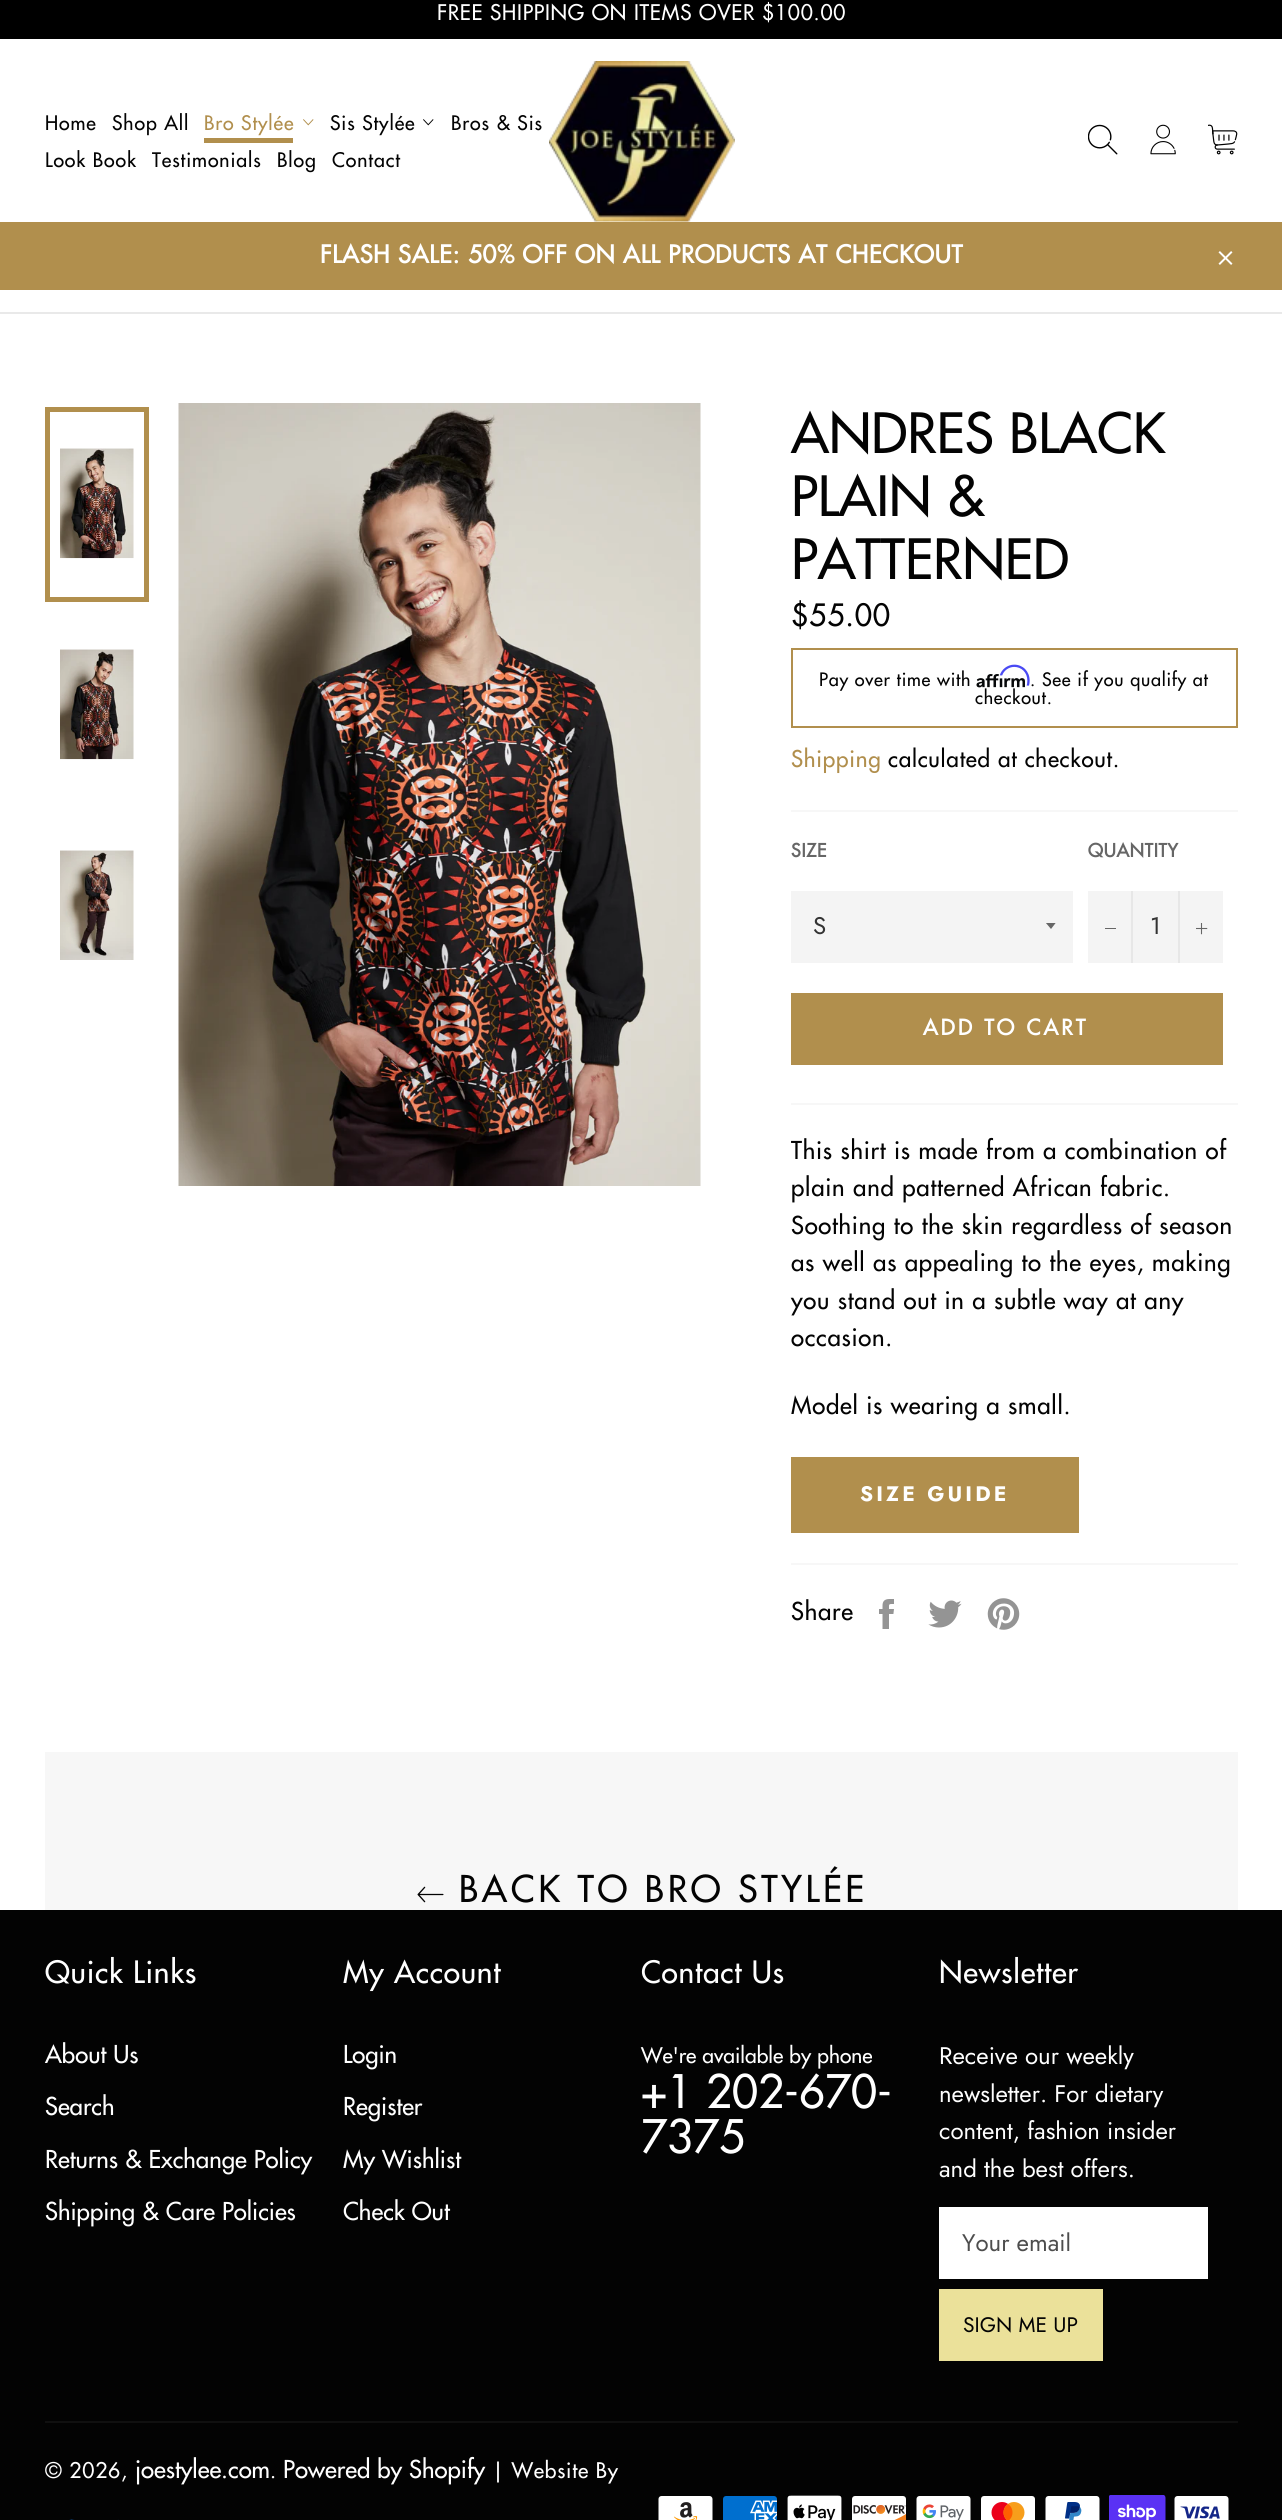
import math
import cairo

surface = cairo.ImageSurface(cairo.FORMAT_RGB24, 1282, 2520)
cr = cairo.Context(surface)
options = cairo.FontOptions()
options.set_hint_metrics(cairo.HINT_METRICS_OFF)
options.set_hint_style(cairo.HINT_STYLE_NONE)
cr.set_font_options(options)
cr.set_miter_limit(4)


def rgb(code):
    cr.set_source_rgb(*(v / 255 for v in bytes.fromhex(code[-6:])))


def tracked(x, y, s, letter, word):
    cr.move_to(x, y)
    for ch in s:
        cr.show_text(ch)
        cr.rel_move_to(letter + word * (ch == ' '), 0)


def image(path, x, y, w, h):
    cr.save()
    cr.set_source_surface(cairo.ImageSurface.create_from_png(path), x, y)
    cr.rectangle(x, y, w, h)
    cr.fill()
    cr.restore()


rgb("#000000")
cr.paint()
rgb("#ffffff")
cr.rectangle(0, 39, 1282, 273)
cr.fill()
rgb("#e9e9e9")
cr.rectangle(0, 312, 1282, 2)
cr.fill()
image("img/1.png", 303, 119, 11, 7)
rgb("#b18f4d")
cr.rectangle(204, 138, 89, 5)
cr.fill()
image("img/2.png", 423, 119, 11, 7)
image("img/3.png", 549, 61, 186, 161)
image("img/4.png", 1088, 124, 30, 31)
image("img/5.png", 1150, 124, 26, 31)
image("img/6.png", 1208, 124, 30, 31)
cr.rectangle(0, 222, 1282, 68)
cr.fill()
image("img/7.png", 1218, 251, 15, 14)
rgb("#ffffff")
cr.rectangle(0, 314, 1282, 1596)
cr.fill()
image("img/8.png", 60, 448, 74, 111)
cr.rectangle(47.5, 409.5, 99, 190)
rgb("#b18f4d")
cr.set_line_width(5)
cr.stroke()
image("img/9.png", 60, 649, 74, 111)
image("img/10.png", 60, 850, 74, 110)
image("img/11.png", 178, 403, 523, 783)
cr.rectangle(792, 649, 445, 78)
cr.set_line_width(2)
cr.stroke()
image("img/13.png", 976, 674, 49, 14)
image("img/12.png", 999, 664, 31, 22)
rgb("#f7f7f7")
cr.rectangle(791, 810, 447, 2)
cr.fill()
rgb("#f4f4f4")
cr.rectangle(791, 891, 282, 72)
cr.fill()
cr.save()
cr.rectangle(1046, 923, 12, 7)
cr.clip()
rgb("#666666")
cr.new_path()
cr.move_to(1045.5, 922.5)
cr.line_to(1051, 929)
cr.line_to(1056, 922.5)
cr.close_path()
cr.fill()
cr.restore()
for x, y, w, h, color in [
    (1088, 891, 135, 72, "#f4f4f4"),
    (1131, 891, 2, 72, "#e7e7e7"),
    (1105, 928, 11, 1, "#666666"),
    (1178, 891, 2, 72, "#e7e7e7"),
]:
    rgb(color)
    cr.rectangle(x, y, w, h)
    cr.fill()
image("img/14.png", 1196, 923, 12, 12)
for x, y, w, h, color in [
    (791, 993, 432, 72, "#b18f4d"),
    (791, 1103, 447, 2, "#f7f7f7"),
    (791, 1457, 288, 76, "#b18f4d"),
    (791, 1563, 447, 2, "#f7f7f7"),
]:
    rgb(color)
    cr.rectangle(x, y, w, h)
    cr.fill()
image("img/15.png", 879, 1599, 15, 30)
image("img/16.png", 928, 1600, 34, 28)
image("img/17.png", 987, 1598, 33, 32)
cr.rectangle(45, 1752, 1193, 158)
cr.fill()
image("img/18.png", 417, 1886, 27, 17)
for x, y, w, h, color in [
    (0, 1910, 1282, 610, "#030303"),
    (939, 2207, 269, 72, "#ffffff"),
    (939, 2289, 164, 72, "#ebe19a"),
    (45, 2421, 1193, 2, "#101010"),
]:
    rgb(color)
    cr.rectangle(x, y, w, h)
    cr.fill()
image("img/19.png", 69, 2519, 50, 1)
image("img/20.png", 658, 2496, 55, 24)
image("img/21.png", 723, 2496, 54, 24)
image("img/22.png", 787, 2495, 55, 25)
image("img/23.png", 852, 2496, 55, 24)
image("img/24.png", 916, 2496, 55, 24)
image("img/25.png", 981, 2496, 54, 24)
image("img/26.png", 1045, 2496, 55, 24)
image("img/27.png", 1109, 2495, 57, 25)
image("img/28.png", 1174, 2496, 55, 24)
cr.select_font_face("Futura Medium")
cr.set_font_size(21)
rgb("#ffffff")
tracked(437, 20, "FREE SHIPPING ON ITEMS OVER $100.00", 0.75, 0)
cr.set_font_size(19.5)
rgb("#030303")
tracked(45, 130, "Home", 0.9, 0)
tracked(112, 130, "Shop All", 0.9, 0)
rgb("#b18f4d")
tracked(204, 130, "Bro Stylée", 0.9, 0)
rgb("#030303")
for x, y, s in [
    (330, 130, "Sis Stylée"),
    (451, 130, "Bros & Sis"),
    (45, 167, "Look Book"),
    (152, 167, "Testimonials"),
    (277, 167, "Blog"),
    (332, 167, "Contact"),
]:
    tracked(x, y, s, 0.9, 0)
cr.select_font_face("Futura", cairo.FONT_SLANT_NORMAL, cairo.FONT_WEIGHT_BOLD)
cr.set_font_size(24)
rgb("#ffffff")
tracked(320, 263, "FLASH SALE: 50% OFF ON ALL PRODUCTS AT CHECKOUT", 0.75, 0)
cr.select_font_face("Futura Medium")
cr.set_font_size(54)
rgb("#030303")
for x, y, s in [
    (791, 453, "ANDRES BLACK"),
    (791, 516, "PLAIN &"),
    (791, 579, "PATTERNED"),
]:
    cr.move_to(x, y)
    cr.show_text(s)
cr.set_font_size(30)
tracked(791, 626, "$55.00", 0.75, 0)
cr.set_font_size(18)
for x, y, s in [
    (819, 686, "Pay over time with"),
    (1030, 686, ". See if you qualify at"),
    (975, 704, "checkout."),
]:
    tracked(x, y, s, 0.75, 0)
cr.set_font_size(22.5)
rgb("#b18f4d")
tracked(791, 767, "Shipping", 0.75, 0)
rgb("#030303")
tracked(888, 767, "calculated at checkout.", 0.75, 0)
cr.select_font_face("Futura", cairo.FONT_SLANT_NORMAL, cairo.FONT_WEIGHT_BOLD)
cr.set_font_size(18)
rgb("#666666")
tracked(791, 857, "SIZE", 0.75, 0)
cr.select_font_face("Jost")
cr.set_font_size(24)
rgb("#333333")
cr.move_to(813, 934)
cr.show_text("S")
cr.select_font_face("Futura", cairo.FONT_SLANT_NORMAL, cairo.FONT_WEIGHT_BOLD)
cr.set_font_size(18)
rgb("#666666")
tracked(1088, 857, "QUANTITY", 0.75, 0)
cr.select_font_face("Jost")
cr.set_font_size(24)
rgb("#333333")
cr.move_to(1150, 934)
cr.show_text("1")
cr.select_font_face("Futura", cairo.FONT_SLANT_NORMAL, cairo.FONT_WEIGHT_BOLD)
cr.set_font_size(21)
rgb("#ffffff")
tracked(923, 1035, "ADD TO CART", 3.1, 0)
cr.select_font_face("Futura Medium")
cr.set_font_size(24)
rgb("#030303")
for x, y, s in [
    (791, 1159, "This shirt is made from a combination of"),
    (791, 1196, "plain and patterned African fabric."),
    (791, 1234, "Soothing to the skin regardless of season"),
    (791, 1271, "as well as appealing to the eyes, making"),
    (791, 1309, "you stand out in a subtle way at any"),
    (791, 1346, "occasion."),
    (791, 1414, "Model is wearing a small."),
]:
    tracked(x, y, s, 0.75, 0)
cr.select_font_face("Jost", cairo.FONT_SLANT_NORMAL, cairo.FONT_WEIGHT_BOLD)
cr.set_font_size(21)
rgb("#ffffff")
tracked(860, 1501, "SIZE GUIDE", 3.1, 0)
cr.select_font_face("Futura Medium")
cr.set_font_size(24)
rgb("#030303")
tracked(791, 1620, "Share", 0.75, 0)
cr.set_font_size(36)
tracked(459, 1902, "BACK TO BRO STYLÉE", 3.6, 0)
cr.set_font_size(30)
rgb("#ffffff")
tracked(45, 1983, "Quick Links", 0.75, 0)
cr.set_font_size(24)
for x, y, s in [
    (45, 2063, "About Us"),
    (45, 2115, "Search"),
    (45, 2168, "Returns & Exchange Policy"),
    (45, 2220, "Shipping & Care Policies"),
]:
    cr.move_to(x, y)
    cr.show_text(s)
cr.set_font_size(30)
tracked(343, 1983, "My Account", 0.75, 0)
cr.set_font_size(24)
for x, y, s in [
    (343, 2063, "Login"),
    (343, 2115, "Register"),
    (343, 2168, "My Wishlist"),
    (343, 2220, "Check Out"),
]:
    cr.move_to(x, y)
    cr.show_text(s)
cr.set_font_size(30)
tracked(641, 1983, "Contact Us", 0.75, 0)
cr.set_font_size(21)
cr.move_to(641, 2063)
cr.show_text("We're available by phone")
cr.set_font_size(45)
cr.move_to(641, 2108)
cr.show_text("+1 202-670-")
cr.move_to(641, 2153)
cr.show_text("7375")
cr.set_font_size(30)
tracked(939, 1983, "Newsletter", 0.75, 0)
cr.select_font_face("Jost")
cr.set_font_size(24)
for x, y, s in [
    (939, 2064, "Receive our weekly"),
    (939, 2102, "newsletter. For dietary"),
    (939, 2139, "content, fashion insider"),
    (939, 2177, "and the best offers."),
]:
    cr.move_to(x, y)
    cr.show_text(s)
rgb("#4d4d4d")
cr.move_to(962, 2251)
cr.show_text("Your email")
cr.set_font_size(21)
rgb("#030303")
cr.move_to(963, 2332)
cr.show_text("SIGN ME UP")
cr.select_font_face("Futura Medium")
rgb("#ffffff")
tracked(45, 2478, "© 2026,", 0.75, 0)
cr.set_font_size(24)
cr.move_to(135, 2478)
cr.show_text("joestylee.com")
cr.set_font_size(21)
tracked(270, 2478, ".", 0.75, 0)
cr.set_font_size(24)
cr.move_to(283, 2478)
cr.show_text("Powered by Shopify")
cr.set_font_size(21)
tracked(492, 2478, "| Website By", 0.75, 0)
surface.write_to_png("page.png")
